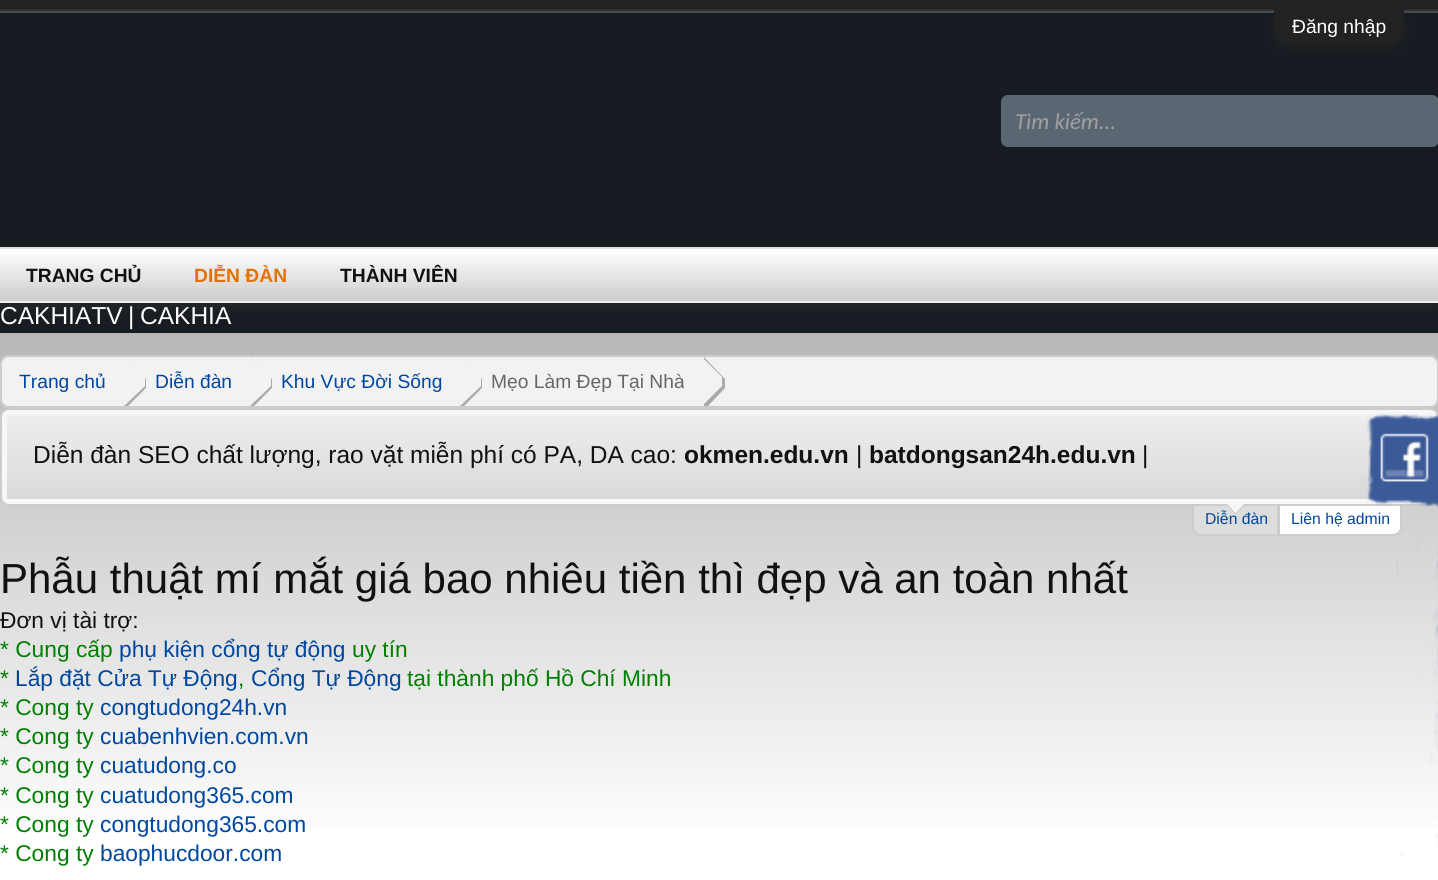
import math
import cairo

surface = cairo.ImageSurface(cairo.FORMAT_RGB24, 1438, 880)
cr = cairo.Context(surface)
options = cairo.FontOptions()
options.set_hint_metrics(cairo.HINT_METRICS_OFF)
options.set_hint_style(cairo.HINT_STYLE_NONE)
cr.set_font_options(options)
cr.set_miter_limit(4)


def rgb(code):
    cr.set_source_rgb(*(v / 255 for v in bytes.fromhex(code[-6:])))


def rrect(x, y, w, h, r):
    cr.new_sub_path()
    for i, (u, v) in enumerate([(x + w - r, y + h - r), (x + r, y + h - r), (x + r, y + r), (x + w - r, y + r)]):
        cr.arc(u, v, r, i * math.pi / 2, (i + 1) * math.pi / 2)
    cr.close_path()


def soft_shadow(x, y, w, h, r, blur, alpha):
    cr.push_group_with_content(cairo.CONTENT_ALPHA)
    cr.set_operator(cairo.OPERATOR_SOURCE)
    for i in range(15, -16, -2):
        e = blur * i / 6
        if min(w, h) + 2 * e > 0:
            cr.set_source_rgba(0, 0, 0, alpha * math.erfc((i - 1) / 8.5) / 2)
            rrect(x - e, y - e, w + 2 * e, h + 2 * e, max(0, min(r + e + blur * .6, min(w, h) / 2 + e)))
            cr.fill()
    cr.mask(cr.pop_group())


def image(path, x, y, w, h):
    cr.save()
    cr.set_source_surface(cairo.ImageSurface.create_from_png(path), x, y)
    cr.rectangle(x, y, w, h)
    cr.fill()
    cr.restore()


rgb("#ffffff")
cr.paint()
for x, y, w, h, color in [
    (0, 0, 1438, 9, "#222222"),
    (0, 9, 1438, 2, "#333333"),
    (0, 13, 1438, 320, "#171c22"),
    (0, 11, 1438, 2, "#444b53"),
]:
    rgb(color)
    cr.rectangle(x, y, w, h)
    cr.fill()
rgb("#222222")
soft_shadow(1274, 12, 130, 35, 17.5, 4.5, 1)
rgb("#222222")
cr.new_path()
cr.move_to(1274, 9)
cr.line_to(1404, 9)
cr.line_to(1404, 26.5)
cr.curve_to(1404, 36, 1396, 44, 1386.5, 44)
cr.line_to(1291.5, 44)
cr.curve_to(1282, 44, 1274, 36, 1274, 26.5)
cr.close_path()
cr.fill()
rgb("#5b6673")
rrect(1001, 95, 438, 52, 7)
cr.fill()
rgb("#323232")
soft_shadow(0, 254, 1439, 56, 0, 7, 0.45)
gradient = cairo.LinearGradient(719, 248, 719, 301)
gradient.add_color_stop_rgba(0.02, 1, 1, 1, 1)
gradient.add_color_stop_rgba(1, 0.804, 0.804, 0.804, 1)
cr.set_source(gradient)
cr.rectangle(0, 249, 1438, 52)
cr.fill()
rgb("#e1e1e1")
cr.rectangle(0, 247, 1438, 2)
cr.fill()
rgb("#eeeeee")
cr.rectangle(0, 301, 1438, 2)
cr.fill()
gradient = cairo.LinearGradient(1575, 299, 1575, 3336)
gradient.add_color_stop_rgba(0, 0.702, 0.702, 0.702, 1)
gradient.add_color_stop_rgba(0.18, 1, 1, 1, 1)
gradient.add_color_stop_rgba(1, 1, 1, 1, 1)
cr.set_source(gradient)
cr.rectangle(0, 333, 1438, 495)
cr.fill()
rgb("#f2f2f2")
rrect(1, 356, 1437, 51, 8)
cr.fill_preserve()
rgb("#cccccc")
cr.stroke()
rgb("#aaaaaa")
cr.new_path()
cr.move_to(128, 406)
cr.line_to(124, 406)
cr.line_to(124, 357)
cr.line_to(146, 379)
cr.line_to(146, 388)
cr.close_path()
cr.fill()
rgb("#f2f2f2")
cr.new_path()
cr.move_to(124, 406)
cr.line_to(124, 357)
cr.line_to(145, 377)
cr.line_to(145, 386)
cr.close_path()
cr.fill()
rgb("#aaaaaa")
cr.new_path()
cr.move_to(254, 406)
cr.line_to(250, 406)
cr.line_to(250, 357)
cr.line_to(272, 379)
cr.line_to(272, 388)
cr.close_path()
cr.fill()
rgb("#f2f2f2")
cr.new_path()
cr.move_to(250, 406)
cr.line_to(250, 357)
cr.line_to(271, 377)
cr.line_to(271, 386)
cr.close_path()
cr.fill()
rgb("#aaaaaa")
cr.new_path()
cr.move_to(464, 406)
cr.line_to(460, 406)
cr.line_to(460, 357)
cr.line_to(482, 379)
cr.line_to(482, 388)
cr.close_path()
cr.fill()
rgb("#f2f2f2")
cr.new_path()
cr.move_to(460, 406)
cr.line_to(460, 357)
cr.line_to(481, 377)
cr.line_to(481, 386)
cr.close_path()
cr.fill()
rgb("#aaaaaa")
cr.new_path()
cr.move_to(708, 406)
cr.line_to(704, 406)
cr.line_to(704, 357)
cr.line_to(725, 379)
cr.line_to(725, 388)
cr.close_path()
cr.fill()
rgb("#f2f2f2")
cr.new_path()
cr.move_to(702, 406)
cr.line_to(702, 357)
cr.line_to(722, 377)
cr.line_to(722, 386)
cr.close_path()
cr.fill()
rgb("#f7f7f7")
rrect(1, 409, 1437, 96, 8)
cr.fill_preserve()
rgb("#cccccc")
cr.stroke()
gradient = cairo.LinearGradient(746, 415, 746, 551)
gradient.add_color_stop_rgba(0, 0.933, 0.933, 0.933, 1)
gradient.add_color_stop_rgba(1, 0.8, 0.8, 0.8, 1)
cr.set_source(gradient)
cr.rectangle(7, 415, 1425, 84)
cr.fill()
rgb("#dddddd")
cr.new_path()
cr.move_to(1193, 505)
cr.line_to(1278, 505)
cr.line_to(1278, 535)
cr.line_to(1201, 535)
cr.curve_to(1196.5, 535, 1193, 531.5, 1193, 527)
cr.close_path()
cr.fill_preserve()
rgb("#cccccc")
cr.stroke()
rgb("#ffffff")
cr.new_path()
cr.move_to(1279, 505)
cr.line_to(1401, 505)
cr.line_to(1401, 527)
cr.curve_to(1401, 531.5, 1397.5, 535, 1393, 535)
cr.line_to(1279, 535)
cr.close_path()
cr.fill_preserve()
rgb("#cccccc")
cr.stroke()
cr.select_font_face("Liberation Sans")
cr.set_font_size(19.25)
rgb("#ffffff")
cr.move_to(1292, 33)
cr.show_text("Đăng nhập")
cr.select_font_face("Carlito", cairo.FONT_SLANT_ITALIC)
cr.set_font_size(22.75)
rgb("#a0a0a0")
cr.move_to(1015, 129)
cr.show_text("Tìm kiếm...")
cr.select_font_face("Liberation Sans", cairo.FONT_SLANT_NORMAL, cairo.FONT_WEIGHT_BOLD)
cr.set_font_size(19.25)
rgb("#111111")
cr.move_to(26, 282)
cr.show_text("TRANG CHỦ")
rgb("#e57200")
cr.move_to(194, 282)
cr.show_text("DIỄN ĐÀN")
rgb("#111111")
cr.move_to(340, 282)
cr.show_text("THÀNH VIÊN")
cr.select_font_face("Liberation Sans")
cr.set_font_size(24.5)
rgb("#ffffff")
for x, y, s in [
    (0, 324, "CAKHIATV"),
    (128, 324, "|"),
    (140, 324, "CAKHIA"),
]:
    cr.move_to(x, y)
    cr.show_text(s)
cr.set_font_size(19.25)
rgb("#0047a0")
for x, y, s in [
    (19, 388, "Trang chủ"),
    (155, 388, "Diễn đàn"),
    (281, 388, "Khu Vực Đời Sống"),
]:
    cr.move_to(x, y)
    cr.show_text(s)
cr.save()
cr.rectangle(492, 357, 192, 49)
cr.clip()
rgb("#666666")
cr.move_to(491, 388)
cr.show_text("Mẹo Làm Đẹp Tại Nhà")
cr.restore()
cr.set_font_size(24.5)
rgb("#111111")
cr.move_to(33, 463)
cr.show_text("Diễn đàn SEO chất lượng, rao vặt miễn phí có PA, DA cao:")
cr.select_font_face("Liberation Sans", cairo.FONT_SLANT_NORMAL, cairo.FONT_WEIGHT_BOLD)
cr.move_to(684, 463)
cr.show_text("okmen.edu.vn")
cr.select_font_face("Liberation Sans")
cr.move_to(856, 463)
cr.show_text("|")
cr.select_font_face("Liberation Sans", cairo.FONT_SLANT_NORMAL, cairo.FONT_WEIGHT_BOLD)
cr.move_to(869, 463)
cr.show_text("batdongsan24h.edu.vn")
cr.select_font_face("Liberation Sans")
cr.move_to(1142, 463)
cr.show_text("|")
cr.set_font_size(15.75)
rgb("#0047a0")
cr.move_to(1205, 524)
cr.show_text("Diễn đàn")
rgb("#cccccc")
cr.new_path()
cr.move_to(1227, 506)
cr.line_to(1244, 506)
cr.line_to(1235.5, 514.5)
cr.close_path()
cr.fill()
rgb("#f7f7f7")
cr.new_path()
cr.move_to(1227, 504)
cr.line_to(1244, 504)
cr.line_to(1235.5, 513)
cr.close_path()
cr.fill()
rgb("#0047a0")
cr.move_to(1291, 524)
cr.show_text("Liên hệ admin")
cr.set_font_size(42)
rgb("#111111")
cr.move_to(0, 593)
cr.show_text("Phẫu thuật mí mắt giá bao nhiêu tiền thì đẹp và an toàn nhất")
cr.set_font_size(22.75)
cr.move_to(0, 628)
cr.show_text("Đơn vị tài trợ:")
rgb("#008000")
cr.move_to(0, 657)
cr.show_text("* Cung cấp")
rgb("#0047a0")
cr.move_to(119, 657)
cr.show_text("phụ kiện cổng tự động")
rgb("#008000")
cr.move_to(352, 657)
cr.show_text("uy tín")
cr.move_to(0, 686)
cr.show_text("*")
rgb("#0047a0")
cr.move_to(15, 686)
cr.show_text("Lắp đặt Cửa Tự Động")
cr.move_to(251, 686)
cr.show_text("Cổng Tự Động")
rgb("#008000")
for x, y, s in [
    (407, 686, "tại thành phố Hồ Chí Minh"),
    (238, 686, ","),
    (0, 715, "* Cong ty"),
]:
    cr.move_to(x, y)
    cr.show_text(s)
rgb("#0047a0")
cr.move_to(100, 715)
cr.show_text("congtudong24h.vn")
rgb("#008000")
cr.move_to(0, 744)
cr.show_text("* Cong ty")
rgb("#0047a0")
cr.move_to(100, 744)
cr.show_text("cuabenhvien.com.vn")
rgb("#008000")
cr.move_to(0, 773)
cr.show_text("* Cong ty")
rgb("#0047a0")
cr.move_to(100, 773)
cr.show_text("cuatudong.co")
rgb("#008000")
cr.move_to(0, 803)
cr.show_text("* Cong ty")
rgb("#0047a0")
cr.move_to(100, 803)
cr.show_text("cuatudong365.com")
rgb("#008000")
cr.move_to(0, 832)
cr.show_text("* Cong ty")
rgb("#0047a0")
cr.move_to(100, 832)
cr.show_text("congtudong365.com")
rgb("#008000")
cr.move_to(0, 861)
cr.show_text("* Cong ty")
rgb("#0047a0")
cr.move_to(100, 861)
cr.show_text("baophucdoor.com")
image("img/1.png", 1366, 410, 72, 447)
surface.write_to_png("page.png")
